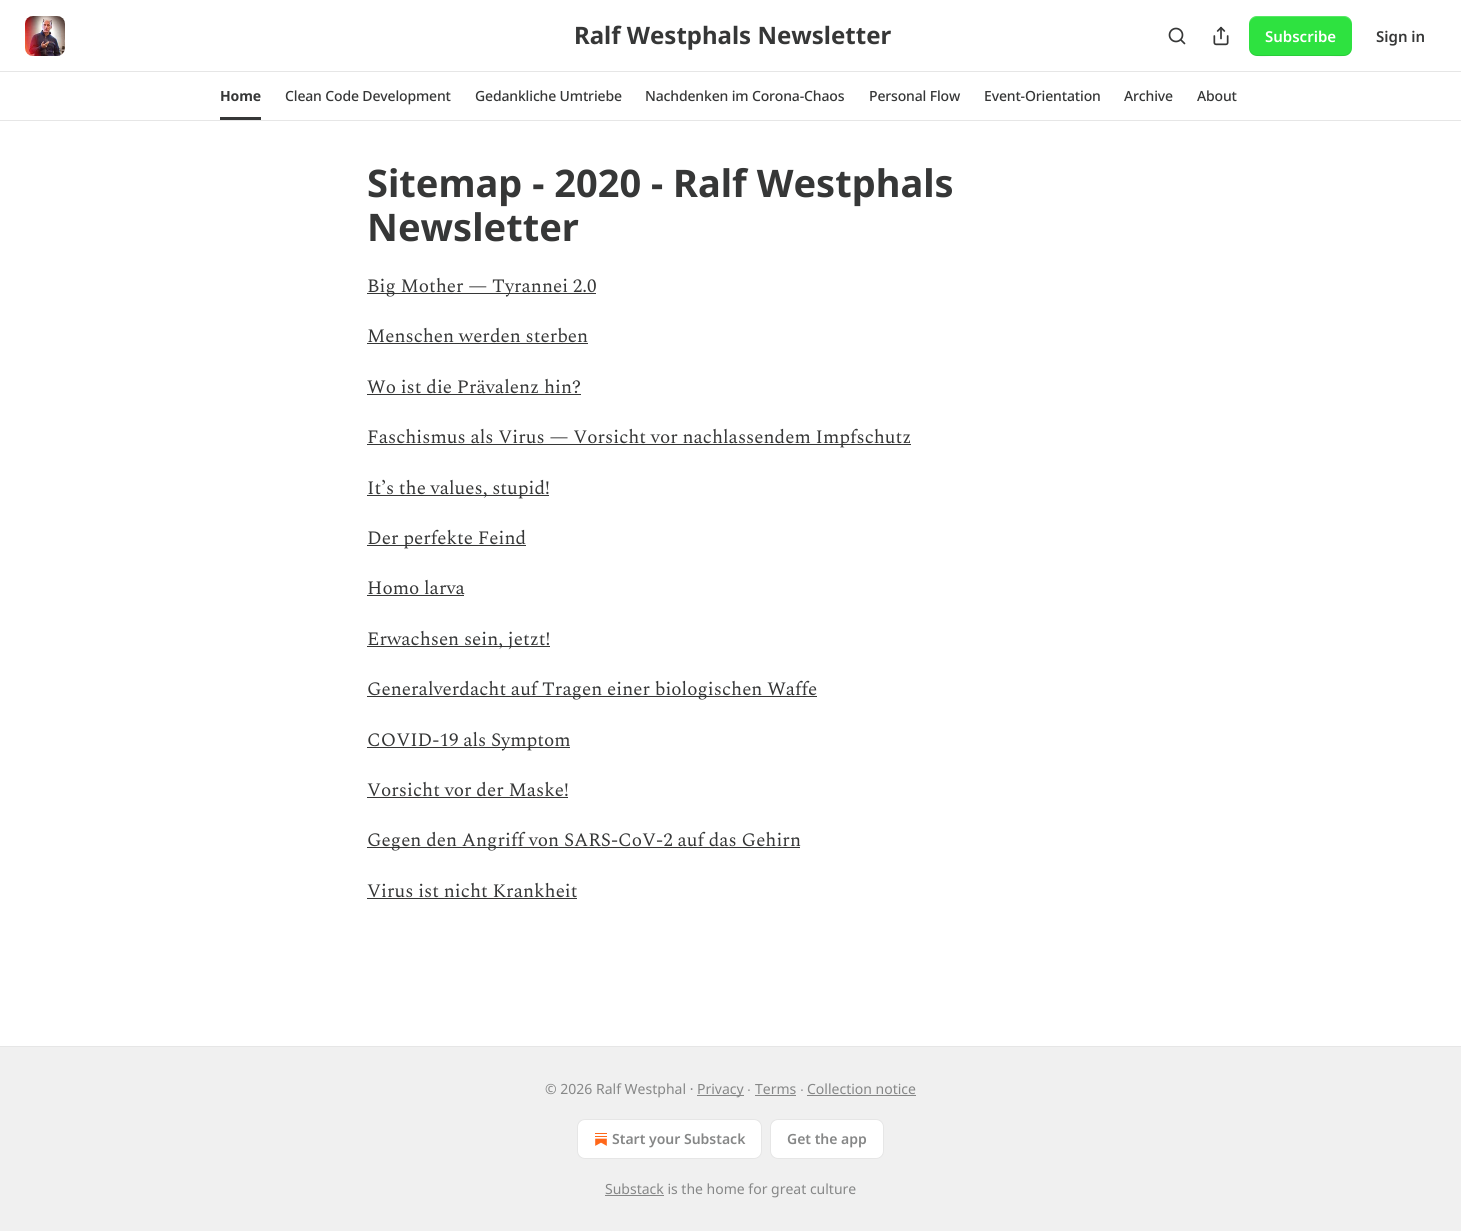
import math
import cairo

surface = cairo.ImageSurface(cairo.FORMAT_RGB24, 1461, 1231)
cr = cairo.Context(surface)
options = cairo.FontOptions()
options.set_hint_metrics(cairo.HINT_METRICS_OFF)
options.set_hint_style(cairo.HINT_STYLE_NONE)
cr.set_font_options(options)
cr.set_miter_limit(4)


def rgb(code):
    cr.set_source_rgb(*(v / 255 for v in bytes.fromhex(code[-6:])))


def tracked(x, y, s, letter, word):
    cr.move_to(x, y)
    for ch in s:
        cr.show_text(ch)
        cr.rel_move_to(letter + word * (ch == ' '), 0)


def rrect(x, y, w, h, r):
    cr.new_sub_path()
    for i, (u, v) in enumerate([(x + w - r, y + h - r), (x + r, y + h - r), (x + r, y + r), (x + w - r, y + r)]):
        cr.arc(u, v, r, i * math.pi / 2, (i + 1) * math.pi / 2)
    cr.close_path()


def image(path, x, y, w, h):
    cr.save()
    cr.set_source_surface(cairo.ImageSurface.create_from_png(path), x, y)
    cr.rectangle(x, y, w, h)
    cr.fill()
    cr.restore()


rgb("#ffffff")
cr.paint()
image("img/1.png", 25, 16, 40, 40)
cr.arc(1176, 35, 6.5, 0, 2 * math.pi)
rgb("#363737")
cr.set_line_width(1.7)
cr.stroke()
cr.new_path()
cr.move_to(1184.5, 43.5)
cr.line_to(1181, 40)
cr.set_line_cap(cairo.LINE_CAP_ROUND)
cr.set_line_join(cairo.LINE_JOIN_ROUND)
cr.stroke()
image("img/2.png", 1213, 26, 16, 20)
rgb("#2ee240")
rrect(1249, 16, 103, 40, 8)
cr.fill()
cr.set_source_rgba(0, 0, 0, 0.1)
cr.new_path()
cr.move_to(1249, 47)
cr.curve_to(1249, 59, 1263, 56, 1272, 56)
cr.line_to(1330, 56)
cr.curve_to(1338, 56, 1352, 59, 1352, 47)
cr.curve_to(1352, 51, 1348, 55, 1344, 55)
cr.line_to(1257, 55)
cr.curve_to(1253, 55, 1249, 51, 1249, 47)
cr.close_path()
cr.fill()
cr.set_source_rgba(1, 1, 1, 0.2)
cr.new_path()
cr.move_to(1257, 17)
cr.line_to(1344, 17)
cr.curve_to(1348, 17, 1352, 21, 1352, 25)
cr.curve_to(1352, 13, 1338, 16, 1330, 16)
cr.line_to(1272, 16)
cr.curve_to(1263, 16, 1249, 13, 1249, 25)
cr.curve_to(1249, 21, 1253, 17, 1257, 17)
cr.close_path()
cr.fill()
for x, y, w, h, color in [
    (0, 71, 1461, 1, "#e6e6e6"),
    (0, 120, 1461, 1, "#e6e6e6"),
    (220, 117, 41, 3, "#363737"),
    (367, 293, 229, 1, "#363737"),
    (367, 343, 221, 1, "#363737"),
    (367, 394, 214, 1, "#363737"),
    (367, 444, 544, 1, "#363737"),
    (367, 495, 182, 1, "#363737"),
    (367, 545, 159, 1, "#363737"),
    (367, 595, 97, 1, "#363737"),
    (367, 646, 183, 1, "#363737"),
    (367, 696, 450, 1, "#363737"),
    (367, 747, 203, 1, "#363737"),
    (367, 797, 201, 1, "#363737"),
    (367, 847, 433, 1, "#363737"),
    (367, 898, 210, 1, "#363737"),
    (0, 1047, 1461, 184, "#f0f0f0"),
    (0, 1046, 1461, 1, "#e6e6e6"),
    (697, 1095, 47, 1, "#868787"),
    (755, 1095, 41, 1, "#868787"),
    (807, 1095, 109, 1, "#868787"),
]:
    rgb(color)
    cr.rectangle(x, y, w, h)
    cr.fill()
rgb("#ffffff")
rrect(577.5, 1119.5, 184, 39, 7.5)
cr.fill_preserve()
rgb("#e6e6e6")
cr.set_line_width(1)
cr.set_line_cap(cairo.LINE_CAP_BUTT)
cr.set_line_join(cairo.LINE_JOIN_MITER)
cr.stroke()
image("img/3.png", 595, 1133, 12, 13)
rgb("#ffffff")
rrect(770.5, 1119.5, 113, 39, 7.5)
cr.fill_preserve()
rgb("#e6e6e6")
cr.stroke()
rgb("#868787")
cr.rectangle(605, 1195, 59, 1)
cr.fill()
cr.select_font_face("Noto Sans", cairo.FONT_SLANT_NORMAL, cairo.FONT_WEIGHT_BOLD)
cr.set_font_size(24)
rgb("#363737")
cr.move_to(574, 44)
cr.show_text("Ralf Westphals Newsletter")
cr.select_font_face("Noto Sans SemiBold")
cr.set_font_size(15)
rgb("#ffffff")
cr.move_to(1265, 42)
cr.show_text("Subscribe")
rgb("#363737")
cr.move_to(1376, 42)
cr.show_text("Sign in")
cr.select_font_face("Noto Sans", cairo.FONT_SLANT_NORMAL, cairo.FONT_WEIGHT_BOLD)
cr.set_font_size(14)
tracked(220, 101, "Home", -0.15, 0)
cr.select_font_face("Noto Sans Medium")
for x, y, s in [
    (285, 101, "Clean Code Development"),
    (475, 101, "Gedankliche Umtriebe"),
    (645, 101, "Nachdenken im Corona-Chaos"),
    (869, 101, "Personal Flow"),
    (984, 101, "Event-Orientation"),
    (1124, 101, "Archive"),
    (1197, 101, "About"),
]:
    tracked(x, y, s, -0.15, 0)
cr.select_font_face("Noto Sans", cairo.FONT_SLANT_NORMAL, cairo.FONT_WEIGHT_BOLD)
cr.set_font_size(38)
cr.move_to(367, 197)
cr.show_text("Sitemap - 2020 - Ralf Westphals")
cr.move_to(367, 241)
cr.show_text("Newsletter")
cr.select_font_face("Spectral")
cr.set_font_size(19)
for x, y, s in [
    (367, 292, "Big Mother — Tyrannei 2.0"),
    (367, 342, "Menschen werden sterben"),
    (367, 393, "Wo ist die Prävalenz hin?"),
    (367, 443, "Faschismus als Virus — Vorsicht vor nachlassendem Impfschutz"),
    (367, 494, "It’s the values, stupid!"),
    (367, 544, "Der perfekte Feind"),
    (367, 594, "Homo larva"),
    (367, 645, "Erwachsen sein, jetzt!"),
    (367, 695, "Generalverdacht auf Tragen einer biologischen Waffe"),
    (367, 746, "COVID-19 als Symptom"),
    (367, 796, "Vorsicht vor der Maske!"),
    (367, 846, "Gegen den Angriff von SARS-CoV-2 auf das Gehirn"),
    (367, 897, "Virus ist nicht Krankheit"),
]:
    cr.move_to(x, y)
    cr.show_text(s)
cr.select_font_face("Noto Sans")
cr.set_font_size(14)
rgb("#868787")
cr.move_to(545, 1094)
cr.show_text("© 2026 Ralf Westphal ·")
cr.move_to(697, 1094)
cr.show_text("Privacy")
cr.select_font_face("Liberation Sans")
cr.move_to(747, 1094)
cr.show_text("∙")
cr.select_font_face("Noto Sans")
cr.move_to(755, 1094)
cr.show_text("Terms")
cr.select_font_face("Liberation Sans")
cr.move_to(800, 1094)
cr.show_text("∙")
cr.select_font_face("Noto Sans")
cr.move_to(807, 1094)
cr.show_text("Collection notice")
cr.select_font_face("Noto Sans SemiBold")
cr.move_to(612, 1144)
cr.show_text("Start your Substack")
cr.move_to(787, 1144)
cr.show_text("Get the app")
cr.select_font_face("Noto Sans")
cr.move_to(605, 1194)
cr.show_text("Substack is the home for great culture")
surface.write_to_png("page.png")
